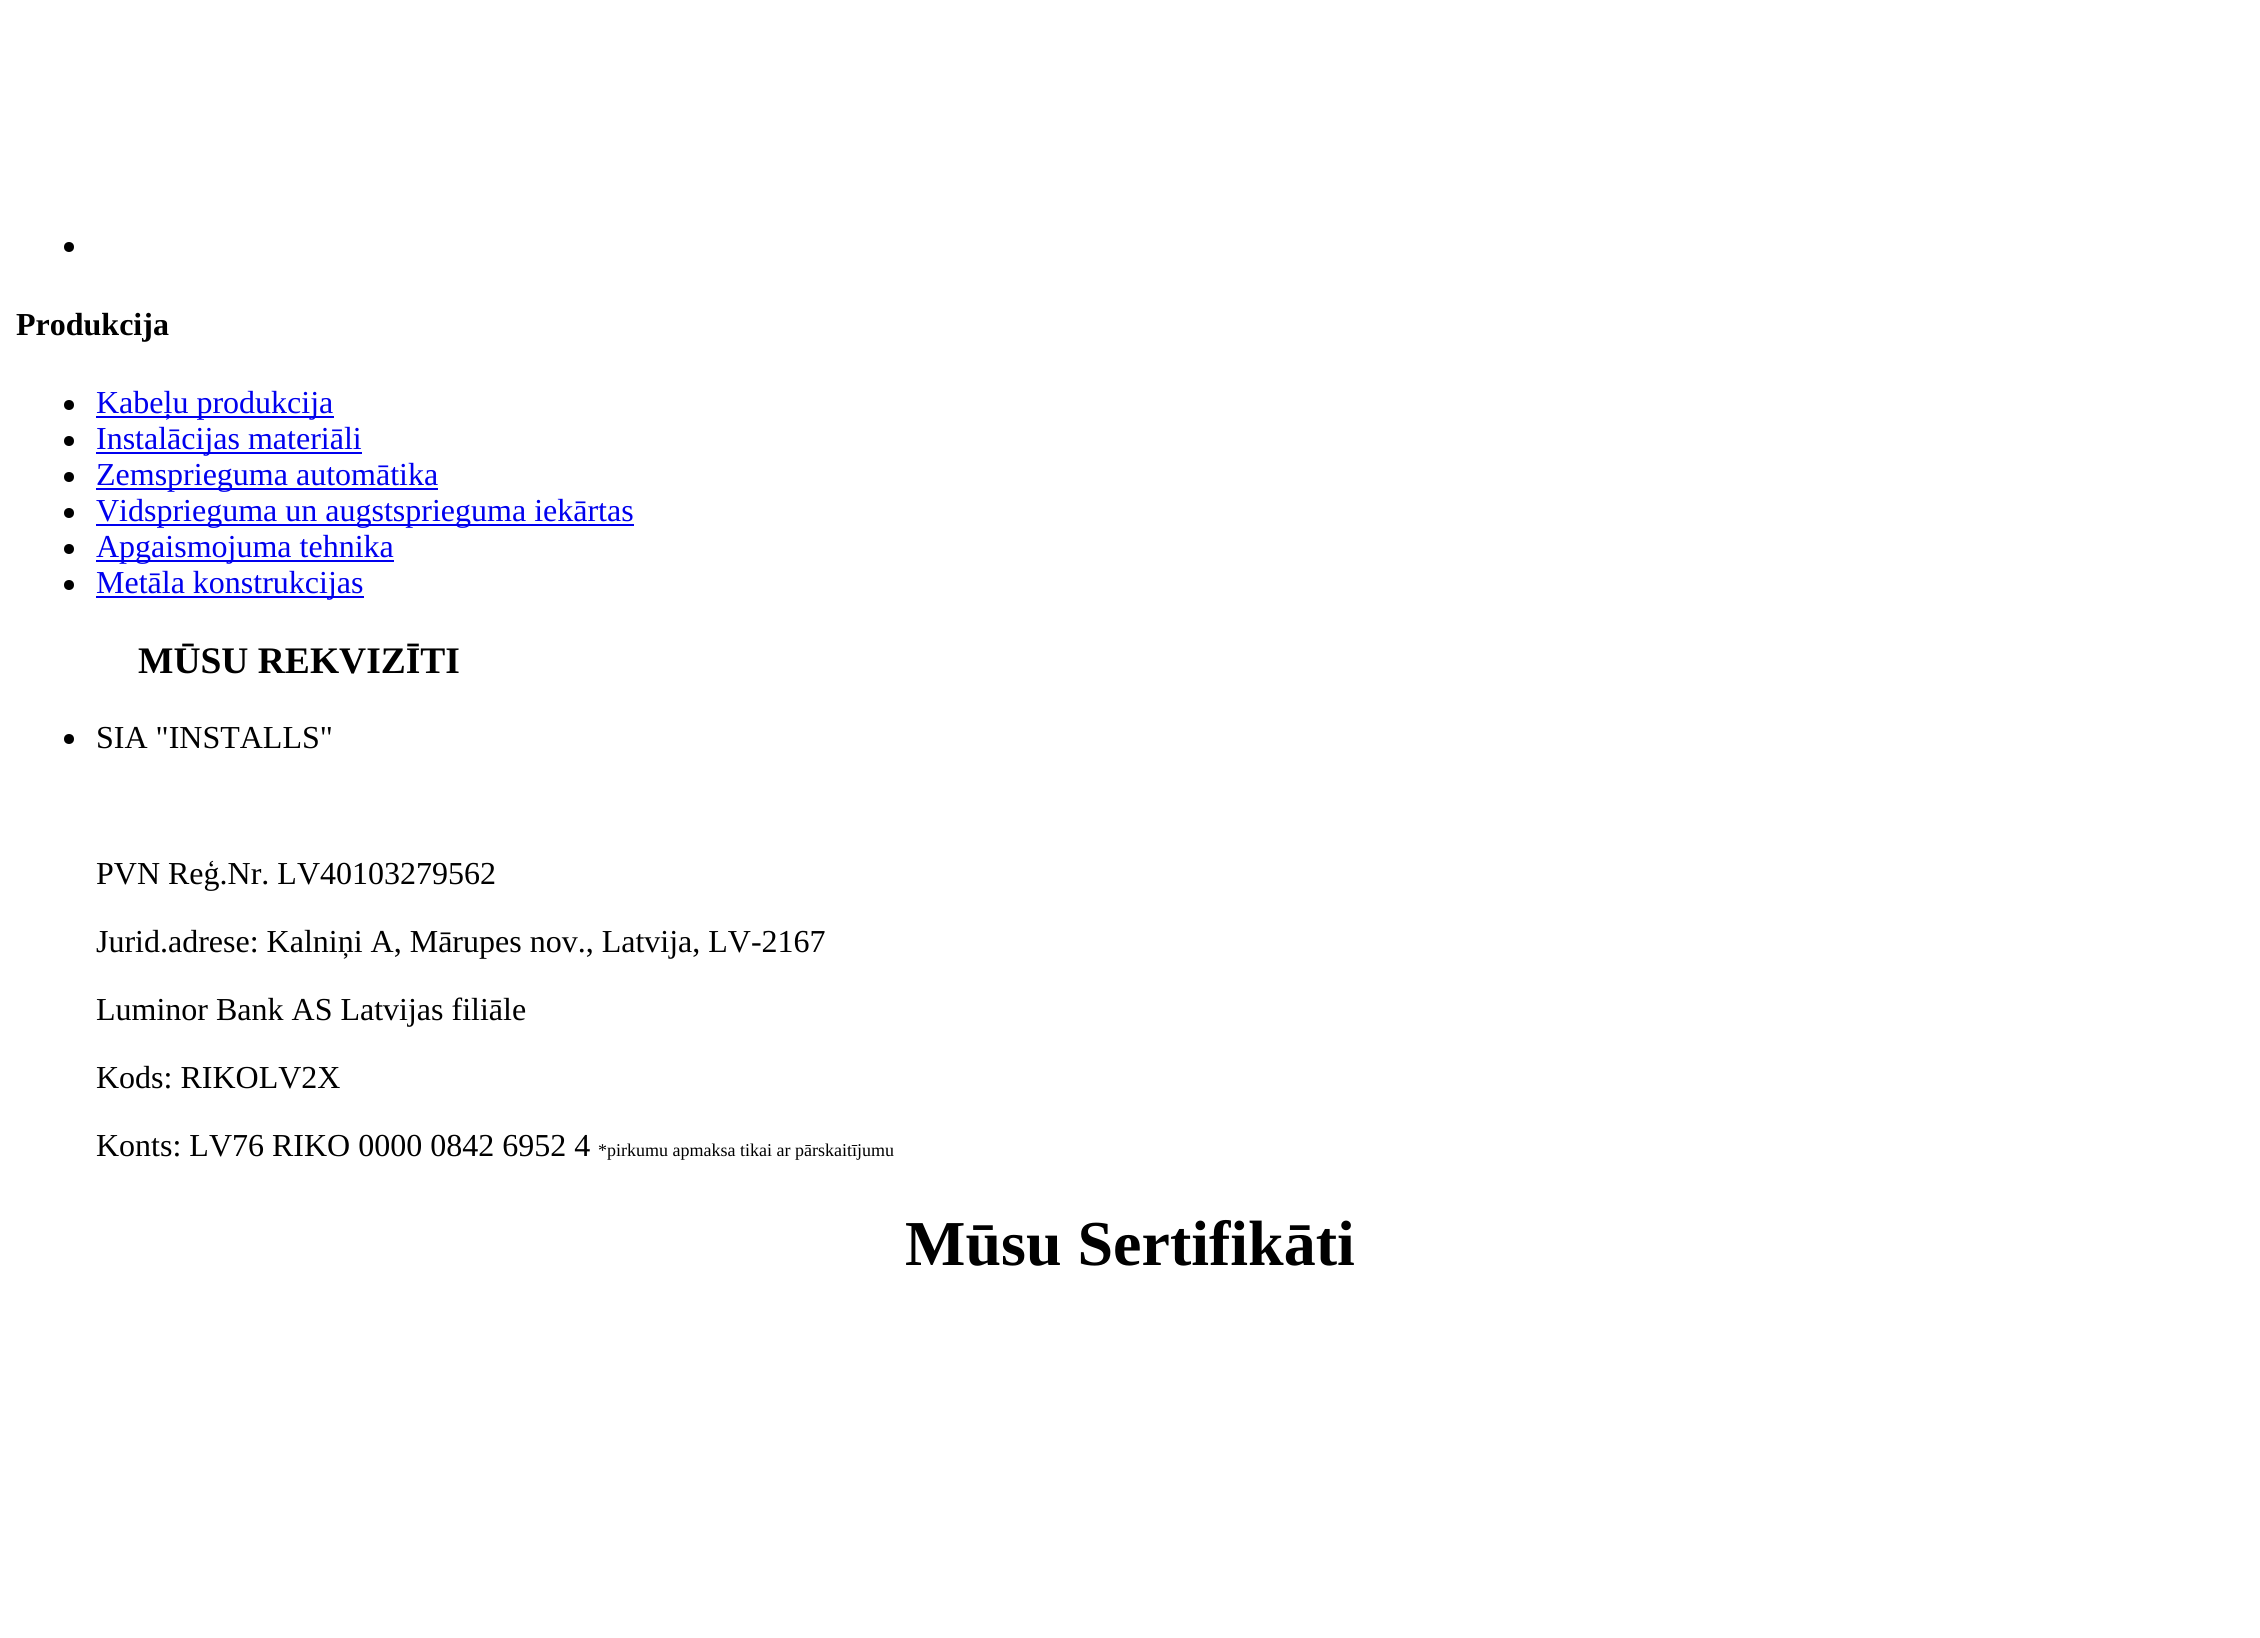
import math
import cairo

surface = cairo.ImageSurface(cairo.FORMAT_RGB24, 2260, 1638)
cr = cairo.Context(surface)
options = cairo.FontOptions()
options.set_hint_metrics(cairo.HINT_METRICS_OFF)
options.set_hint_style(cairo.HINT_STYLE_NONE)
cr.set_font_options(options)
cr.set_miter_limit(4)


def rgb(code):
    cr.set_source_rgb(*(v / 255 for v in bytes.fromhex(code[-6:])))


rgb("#ffffff")
cr.paint()
rgb("#000000")
cr.arc(69, 247, 5, 0, 2 * math.pi)
cr.fill()
cr.arc(69, 405, 5, 0, 2 * math.pi)
cr.fill()
rgb("#0000ee")
cr.rectangle(96, 416, 238, 2)
cr.fill()
rgb("#000000")
cr.arc(69, 441, 5, 0, 2 * math.pi)
cr.fill()
rgb("#0000ee")
cr.rectangle(96, 452, 266, 2)
cr.fill()
rgb("#000000")
cr.arc(69, 477, 5, 0, 2 * math.pi)
cr.fill()
rgb("#0000ee")
cr.rectangle(96, 488, 342, 2)
cr.fill()
rgb("#000000")
cr.arc(69, 513, 5, 0, 2 * math.pi)
cr.fill()
rgb("#0000ee")
cr.rectangle(96, 524, 538, 2)
cr.fill()
rgb("#000000")
cr.arc(69, 549, 5, 0, 2 * math.pi)
cr.fill()
rgb("#0000ee")
cr.rectangle(96, 560, 298, 2)
cr.fill()
rgb("#000000")
cr.arc(69, 585, 5, 0, 2 * math.pi)
cr.fill()
rgb("#0000ee")
cr.rectangle(96, 596, 268, 2)
cr.fill()
rgb("#000000")
cr.arc(69, 739, 5, 0, 2 * math.pi)
cr.fill()
cr.select_font_face("Liberation Serif", cairo.FONT_SLANT_NORMAL, cairo.FONT_WEIGHT_BOLD)
cr.set_font_size(32)
cr.move_to(16, 335)
cr.show_text("Produkcija")
cr.select_font_face("Liberation Serif")
rgb("#0000ee")
for x, y, s in [
    (96, 413, "Kabeļu produkcija"),
    (96, 449, "Instalācijas materiāli"),
    (96, 485, "Zemsprieguma automātika"),
    (96, 521, "Vidsprieguma un augstsprieguma iekārtas"),
    (96, 557, "Apgaismojuma tehnika"),
    (96, 593, "Metāla konstrukcijas"),
]:
    cr.move_to(x, y)
    cr.show_text(s)
cr.select_font_face("Liberation Serif", cairo.FONT_SLANT_NORMAL, cairo.FONT_WEIGHT_BOLD)
cr.set_font_size(37.5)
rgb("#000000")
cr.move_to(138, 673)
cr.show_text("MŪSU REKVIZĪTI")
cr.select_font_face("Liberation Serif")
cr.set_font_size(32)
for x, y, s in [
    (96, 748, "SIA \"INSTALLS\""),
    (96, 884, "PVN Reģ.Nr. LV40103279562"),
    (96, 952, "Jurid.adrese: Kalniņi A, Mārupes nov., Latvija, LV-2167"),
    (96, 1020, "Luminor Bank AS Latvijas filiāle"),
    (96, 1088, "Kods: RIKOLV2X"),
    (96, 1156, "Konts: LV76 RIKO 0000 0842 6952 4"),
]:
    cr.move_to(x, y)
    cr.show_text(s)
cr.set_font_size(18)
cr.move_to(598, 1156)
cr.show_text("*pirkumu apmaksa tikai ar pārskaitījumu")
cr.select_font_face("Liberation Serif", cairo.FONT_SLANT_NORMAL, cairo.FONT_WEIGHT_BOLD)
cr.set_font_size(64)
cr.move_to(905, 1265)
cr.show_text("Mūsu Sertifikāti")
surface.write_to_png("page.png")
